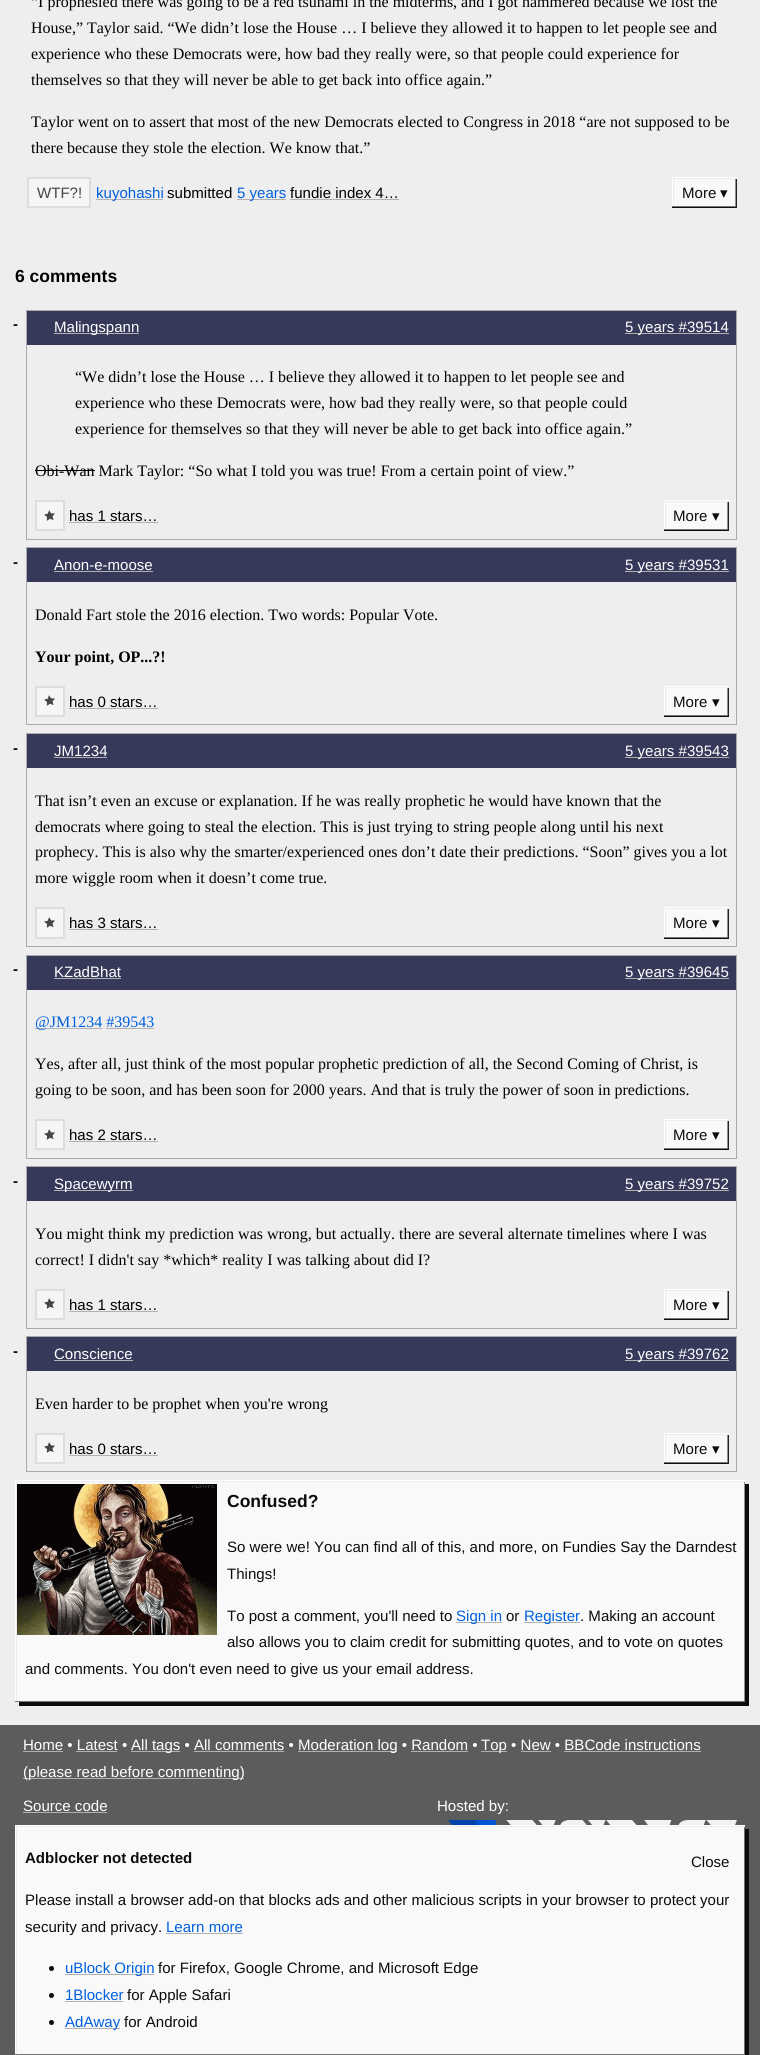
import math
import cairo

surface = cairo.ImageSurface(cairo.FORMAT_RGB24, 760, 2055)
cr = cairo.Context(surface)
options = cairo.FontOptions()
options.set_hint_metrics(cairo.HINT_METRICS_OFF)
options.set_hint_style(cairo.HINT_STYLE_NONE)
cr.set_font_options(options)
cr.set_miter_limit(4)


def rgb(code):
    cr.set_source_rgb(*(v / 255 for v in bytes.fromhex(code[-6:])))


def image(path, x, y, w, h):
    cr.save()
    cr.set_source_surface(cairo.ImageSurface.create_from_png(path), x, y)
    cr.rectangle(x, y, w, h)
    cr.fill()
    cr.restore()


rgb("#5c5c5c")
cr.paint()
rgb("#eeeeee")
cr.rectangle(0, 0, 760, 1725)
cr.fill()
rgb("#f6f6f7")
cr.rectangle(28, 178, 62, 29)
cr.fill_preserve()
rgb("#dddde0")
cr.stroke()
for x, y, w, h, color in [
    (96, 199, 67, 1, "#b1b1b3"),
    (237, 199, 49, 1, "#b1b1b3"),
    (290, 199, 109, 1, "#b1b1b3"),
    (674, 179, 63, 28, "#f9f9fa"),
]:
    rgb(color)
    cr.rectangle(x, y, w, h)
    cr.fill()
image("img/1.png", 672, 177, 65, 31)
cr.rectangle(26.5, 310.5, 710, 229)
rgb("#aaaaaa")
cr.set_line_width(1)
cr.stroke()
for x, y, w, h, color in [
    (27, 311, 709, 34, "#363959"),
    (54, 333, 85, 1, "#b1b1b3"),
    (625, 333, 104, 1, "#b1b1b3"),
]:
    rgb(color)
    cr.rectangle(x, y, w, h)
    cr.fill()
rgb("#f6f6f7")
cr.rectangle(36, 501, 28, 29)
cr.fill_preserve()
rgb("#dddde0")
cr.set_line_width(2)
cr.stroke()
image("img/2.png", 44, 510, 11, 11)
rgb("#b1b1b3")
cr.rectangle(69, 522, 89, 1)
cr.fill()
rgb("#f9f9fa")
cr.rectangle(666, 502, 63, 28)
cr.fill()
image("img/1.png", 664, 500, 65, 31)
rgb("#000000")
cr.rectangle(35, 470, 60, 1)
cr.fill()
cr.rectangle(26.5, 547.5, 710, 177)
rgb("#aaaaaa")
cr.set_line_width(1)
cr.stroke()
for x, y, w, h, color in [
    (27, 548, 709, 34, "#363959"),
    (54, 571, 99, 1, "#b1b1b3"),
    (625, 571, 104, 1, "#b1b1b3"),
]:
    rgb(color)
    cr.rectangle(x, y, w, h)
    cr.fill()
rgb("#f6f6f7")
cr.rectangle(36, 687, 28, 29)
cr.fill_preserve()
rgb("#dddde0")
cr.set_line_width(2)
cr.stroke()
image("img/2.png", 44, 695, 11, 11)
rgb("#b1b1b3")
cr.rectangle(69, 708, 89, 1)
cr.fill()
rgb("#f9f9fa")
cr.rectangle(666, 688, 63, 28)
cr.fill()
image("img/1.png", 664, 686, 65, 31)
cr.rectangle(26.5, 733.5, 710, 213)
rgb("#aaaaaa")
cr.set_line_width(1)
cr.stroke()
for x, y, w, h, color in [
    (27, 734, 709, 34, "#363959"),
    (54, 757, 53, 1, "#b1b1b3"),
    (625, 757, 104, 1, "#b1b1b3"),
]:
    rgb(color)
    cr.rectangle(x, y, w, h)
    cr.fill()
rgb("#f6f6f7")
cr.rectangle(36, 908, 28, 30)
cr.fill_preserve()
rgb("#dddde0")
cr.set_line_width(2)
cr.stroke()
image("img/2.png", 44, 917, 11, 11)
rgb("#b1b1b3")
cr.rectangle(69, 929, 89, 1)
cr.fill()
rgb("#f9f9fa")
cr.rectangle(666, 909, 63, 29)
cr.fill()
image("img/3.png", 664, 907, 65, 32)
cr.rectangle(26.5, 955.5, 710, 203)
rgb("#aaaaaa")
cr.set_line_width(1)
cr.stroke()
for x, y, w, h, color in [
    (27, 956, 709, 34, "#363959"),
    (54, 978, 67, 1, "#b1b1b3"),
    (625, 978, 104, 1, "#b1b1b3"),
]:
    rgb(color)
    cr.rectangle(x, y, w, h)
    cr.fill()
rgb("#f6f6f7")
cr.rectangle(36, 1120, 28, 29)
cr.fill_preserve()
rgb("#dddde0")
cr.set_line_width(2)
cr.stroke()
image("img/2.png", 44, 1129, 11, 11)
rgb("#b1b1b3")
cr.rectangle(69, 1141, 89, 1)
cr.fill()
rgb("#f9f9fa")
cr.rectangle(666, 1121, 63, 28)
cr.fill()
image("img/1.png", 664, 1119, 65, 31)
rgb("#b1b1b3")
cr.rectangle(35, 1028, 67, 1)
cr.fill()
cr.rectangle(26.5, 1166.5, 710, 162)
rgb("#aaaaaa")
cr.set_line_width(1)
cr.stroke()
for x, y, w, h, color in [
    (27, 1167, 709, 34, "#363959"),
    (54, 1190, 79, 1, "#b1b1b3"),
    (625, 1190, 104, 1, "#b1b1b3"),
]:
    rgb(color)
    cr.rectangle(x, y, w, h)
    cr.fill()
rgb("#f6f6f7")
cr.rectangle(36, 1290, 28, 29)
cr.fill_preserve()
rgb("#dddde0")
cr.set_line_width(2)
cr.stroke()
image("img/2.png", 44, 1298, 11, 11)
rgb("#b1b1b3")
cr.rectangle(69, 1311, 89, 1)
cr.fill()
rgb("#f9f9fa")
cr.rectangle(666, 1291, 63, 28)
cr.fill()
image("img/1.png", 664, 1289, 65, 31)
cr.rectangle(26.5, 1336.5, 710, 135)
rgb("#aaaaaa")
cr.set_line_width(1)
cr.stroke()
for x, y, w, h, color in [
    (27, 1337, 709, 34, "#363959"),
    (54, 1360, 79, 1, "#b1b1b3"),
    (625, 1360, 104, 1, "#b1b1b3"),
]:
    rgb(color)
    cr.rectangle(x, y, w, h)
    cr.fill()
rgb("#f6f6f7")
cr.rectangle(36, 1434, 28, 29)
cr.fill_preserve()
rgb("#dddde0")
cr.set_line_width(2)
cr.stroke()
image("img/2.png", 44, 1442, 11, 11)
rgb("#b1b1b3")
cr.rectangle(69, 1455, 89, 1)
cr.fill()
rgb("#f9f9fa")
cr.rectangle(666, 1435, 63, 28)
cr.fill()
image("img/1.png", 664, 1433, 65, 31)
rgb("#0c0c0d")
cr.new_path()
cr.move_to(19, 1702)
cr.line_to(19, 1706)
cr.line_to(749, 1706)
cr.line_to(749, 1484)
cr.line_to(745, 1484)
cr.line_to(745, 1702)
cr.close_path()
cr.fill()
rgb("#f9f9fa")
cr.rectangle(17, 1482, 727, 219)
cr.fill()
image("img/4.png", 15, 1480, 730, 222)
image("img/5.png", 17, 1484, 200, 151)
for x, y, w, h, color in [
    (456, 1622, 46, 1, "#b1b1b3"),
    (524, 1622, 56, 1, "#b1b1b3"),
    (23, 1751, 40, 1, "#b1b1b3"),
    (131, 1751, 49, 1, "#b1b1b3"),
    (298, 1751, 99, 1, "#b1b1b3"),
    (481, 1751, 26, 1, "#b1b1b3"),
    (76, 1751, 41, 1, "#b1b1b3"),
    (23, 1778, 221, 1, "#b1b1b3"),
    (23, 1812, 84, 1, "#b1b1b3"),
]:
    rgb(color)
    cr.rectangle(x, y, w, h)
    cr.fill()
image("img/6.png", 448, 1820, 289, 5)
rgb("#0c0c0d")
cr.new_path()
cr.move_to(19, 2055)
cr.line_to(19, 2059)
cr.line_to(749, 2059)
cr.line_to(749, 1829)
cr.line_to(745, 1829)
cr.line_to(745, 2055)
cr.close_path()
cr.fill()
rgb("#f9f9fa")
cr.rectangle(17, 1827, 727, 227)
cr.fill()
image("img/7.png", 15, 1825, 730, 230)
rgb("#b1b1b3")
cr.rectangle(166, 1933, 77, 1)
cr.fill()
rgb("#0c0c0d")
cr.arc(51.5, 1968.5, 2.5, 0, 2 * math.pi)
cr.fill()
rgb("#b1b1b3")
cr.rectangle(65, 1974, 89, 1)
cr.fill()
rgb("#0c0c0d")
cr.arc(51.5, 1995.5, 2.5, 0, 2 * math.pi)
cr.fill()
rgb("#b1b1b3")
cr.rectangle(65, 2001, 58, 1)
cr.fill()
rgb("#0c0c0d")
cr.arc(51.5, 2022.5, 2.5, 0, 2 * math.pi)
cr.fill()
rgb("#b1b1b3")
cr.rectangle(65, 2028, 55, 1)
cr.fill()
cr.select_font_face("Liberation Serif")
cr.set_font_size(16)
rgb("#000000")
for x, y, s in [
    (31, 7, "“I prophesied there was going to be a red tsunami in the midterms, and I got hammered because we lost the"),
    (31, 33, "House,” Taylor said. “We didn’t lose the House … I believe they allowed it to happen to let people see and"),
    (31, 59, "experience who these Democrats were, how bad they really were, so that people could experience for"),
    (31, 85, "themselves so that they will never be able to get back into office again.”"),
    (31, 127, "Taylor went on to assert that most of the new Democrats elected to Congress in 2018 “are not supposed to be"),
    (31, 153, "there because they stole the election. We know that.”"),
]:
    cr.move_to(x, y)
    cr.show_text(s)
cr.select_font_face("Liberation Sans")
cr.set_font_size(15.05)
rgb("#454545")
cr.move_to(37, 198)
cr.show_text("WTF?!")
rgb("#0060df")
cr.move_to(96, 198)
cr.show_text("kuyohashi")
rgb("#000000")
cr.move_to(167, 198)
cr.show_text("submitted")
rgb("#0060df")
cr.move_to(237, 198)
cr.show_text("5 years")
rgb("#000000")
cr.move_to(290, 198)
cr.show_text("fundie index 4…")
rgb("#0c0c0d")
cr.move_to(682, 198)
cr.show_text("More")
cr.select_font_face("DejaVu Sans")
cr.move_to(720, 198)
cr.show_text("▾")
cr.select_font_face("Liberation Sans", cairo.FONT_SLANT_NORMAL, cairo.FONT_WEIGHT_BOLD)
cr.set_font_size(17.5)
rgb("#000000")
cr.move_to(15, 282)
cr.show_text("6 comments")
cr.select_font_face("Liberation Sans")
cr.set_font_size(15.05)
rgb("#ffffff")
cr.move_to(54, 332)
cr.show_text("Malingspann")
cr.move_to(625, 332)
cr.show_text("5 years #39514")
cr.select_font_face("Liberation Sans", cairo.FONT_SLANT_NORMAL, cairo.FONT_WEIGHT_BOLD)
rgb("#0c0c0d")
cr.move_to(13, 329)
cr.show_text("-")
cr.select_font_face("Liberation Sans")
rgb("#000000")
cr.move_to(69, 521)
cr.show_text("has 1 stars…")
rgb("#0c0c0d")
cr.move_to(673, 521)
cr.show_text("More")
cr.select_font_face("DejaVu Sans")
cr.move_to(712, 521)
cr.show_text("▾")
cr.select_font_face("Liberation Serif")
cr.set_font_size(16)
rgb("#000000")
for x, y, s in [
    (75, 382, "“We didn’t lose the House … I believe they allowed it to happen to let people see and"),
    (75, 408, "experience who these Democrats were, how bad they really were, so that people could"),
    (75, 434, "experience for themselves so that they will never be able to get back into office again.”"),
    (35, 476, "Obi-Wan Mark Taylor: “So what I told you was true! From a certain point of view.”"),
]:
    cr.move_to(x, y)
    cr.show_text(s)
cr.select_font_face("Liberation Sans")
cr.set_font_size(15.05)
rgb("#ffffff")
cr.move_to(54, 570)
cr.show_text("Anon-e-moose")
cr.move_to(625, 570)
cr.show_text("5 years #39531")
cr.select_font_face("Liberation Sans", cairo.FONT_SLANT_NORMAL, cairo.FONT_WEIGHT_BOLD)
rgb("#0c0c0d")
cr.move_to(13, 567)
cr.show_text("-")
cr.select_font_face("Liberation Sans")
rgb("#000000")
cr.move_to(69, 707)
cr.show_text("has 0 stars…")
rgb("#0c0c0d")
cr.move_to(673, 707)
cr.show_text("More")
cr.select_font_face("DejaVu Sans")
cr.move_to(712, 707)
cr.show_text("▾")
cr.select_font_face("Liberation Serif")
cr.set_font_size(16)
rgb("#000000")
cr.move_to(35, 620)
cr.show_text("Donald Fart stole the 2016 election. Two words: Popular Vote.")
cr.select_font_face("Liberation Serif", cairo.FONT_SLANT_NORMAL, cairo.FONT_WEIGHT_BOLD)
cr.move_to(35, 662)
cr.show_text("Your point, OP...?!")
cr.select_font_face("Liberation Sans")
cr.set_font_size(15.05)
rgb("#ffffff")
cr.move_to(54, 756)
cr.show_text("JM1234")
cr.move_to(625, 756)
cr.show_text("5 years #39543")
cr.select_font_face("Liberation Sans", cairo.FONT_SLANT_NORMAL, cairo.FONT_WEIGHT_BOLD)
rgb("#0c0c0d")
cr.move_to(13, 753)
cr.show_text("-")
cr.select_font_face("Liberation Sans")
rgb("#000000")
cr.move_to(69, 928)
cr.show_text("has 3 stars…")
rgb("#0c0c0d")
cr.move_to(673, 928)
cr.show_text("More")
cr.select_font_face("DejaVu Sans")
cr.move_to(712, 928)
cr.show_text("▾")
cr.select_font_face("Liberation Serif")
cr.set_font_size(16)
rgb("#000000")
for x, y, s in [
    (35, 806, "That isn’t even an excuse or explanation. If he was really prophetic he would have known that the"),
    (35, 832, "democrats where going to steal the election. This is just trying to string people along until his next"),
    (35, 857, "prophecy. This is also why the smarter/experienced ones don’t date their predictions. “Soon” gives you a lot"),
    (35, 883, "more wiggle room when it doesn’t come true."),
]:
    cr.move_to(x, y)
    cr.show_text(s)
cr.select_font_face("Liberation Sans")
cr.set_font_size(15.05)
rgb("#ffffff")
cr.move_to(54, 977)
cr.show_text("KZadBhat")
cr.move_to(625, 977)
cr.show_text("5 years #39645")
cr.select_font_face("Liberation Sans", cairo.FONT_SLANT_NORMAL, cairo.FONT_WEIGHT_BOLD)
rgb("#0c0c0d")
cr.move_to(13, 974)
cr.show_text("-")
cr.select_font_face("Liberation Sans")
rgb("#000000")
cr.move_to(69, 1140)
cr.show_text("has 2 stars…")
rgb("#0c0c0d")
cr.move_to(673, 1140)
cr.show_text("More")
cr.select_font_face("DejaVu Sans")
cr.move_to(712, 1140)
cr.show_text("▾")
cr.select_font_face("Liberation Serif")
cr.set_font_size(16)
rgb("#0060df")
cr.move_to(35, 1027)
cr.show_text("@JM1234 #39543")
rgb("#b1b1b3")
cr.rectangle(106, 1028, 48, 1)
cr.fill()
rgb("#000000")
cr.move_to(35, 1069)
cr.show_text("Yes, after all, just think of the most popular prophetic prediction of all, the Second Coming of Christ, is")
cr.move_to(35, 1095)
cr.show_text("going to be soon, and has been soon for 2000 years. And that is truly the power of soon in predictions.")
cr.select_font_face("Liberation Sans")
cr.set_font_size(15.05)
rgb("#ffffff")
cr.move_to(54, 1189)
cr.show_text("Spacewyrm")
cr.move_to(625, 1189)
cr.show_text("5 years #39752")
cr.select_font_face("Liberation Sans", cairo.FONT_SLANT_NORMAL, cairo.FONT_WEIGHT_BOLD)
rgb("#0c0c0d")
cr.move_to(13, 1186)
cr.show_text("-")
cr.select_font_face("Liberation Sans")
rgb("#000000")
cr.move_to(69, 1310)
cr.show_text("has 1 stars…")
rgb("#0c0c0d")
cr.move_to(673, 1310)
cr.show_text("More")
cr.select_font_face("DejaVu Sans")
cr.move_to(712, 1310)
cr.show_text("▾")
cr.select_font_face("Liberation Serif")
cr.set_font_size(16)
rgb("#000000")
cr.move_to(35, 1239)
cr.show_text("You might think my prediction was wrong, but actually. there are several alternate timelines where I was")
cr.move_to(35, 1265)
cr.show_text("correct! I didn't say *which* reality I was talking about did I?")
cr.select_font_face("Liberation Sans")
cr.set_font_size(15.05)
rgb("#ffffff")
cr.move_to(54, 1359)
cr.show_text("Conscience")
cr.move_to(625, 1359)
cr.show_text("5 years #39762")
cr.select_font_face("Liberation Sans", cairo.FONT_SLANT_NORMAL, cairo.FONT_WEIGHT_BOLD)
rgb("#0c0c0d")
cr.move_to(13, 1356)
cr.show_text("-")
cr.select_font_face("Liberation Sans")
rgb("#000000")
cr.move_to(69, 1454)
cr.show_text("has 0 stars…")
rgb("#0c0c0d")
cr.move_to(673, 1454)
cr.show_text("More")
cr.select_font_face("DejaVu Sans")
cr.move_to(712, 1454)
cr.show_text("▾")
cr.select_font_face("Liberation Serif")
cr.set_font_size(16)
rgb("#000000")
cr.move_to(35, 1409)
cr.show_text("Even harder to be prophet when you're wrong")
cr.select_font_face("Liberation Sans", cairo.FONT_SLANT_NORMAL, cairo.FONT_WEIGHT_BOLD)
cr.set_font_size(17.5)
rgb("#0c0c0d")
cr.move_to(227, 1507)
cr.show_text("Confused?")
cr.select_font_face("Liberation Sans")
cr.set_font_size(15.05)
for x, y, s in [
    (227, 1552, "So were we! You can find all of this, and more, on Fundies Say the Darndest"),
    (227, 1579, "Things!"),
    (227, 1621, "To post a comment, you'll need to"),
]:
    cr.move_to(x, y)
    cr.show_text(s)
rgb("#0060df")
cr.move_to(456, 1621)
cr.show_text("Sign in")
rgb("#0c0c0d")
cr.move_to(506, 1621)
cr.show_text("or")
rgb("#0060df")
cr.move_to(524, 1621)
cr.show_text("Register")
rgb("#0c0c0d")
for x, y, s in [
    (580, 1621, ". Making an account"),
    (227, 1647, "also allows you to claim credit for submitting quotes, and to vote on quotes"),
    (25, 1674, "and comments. You don't even need to give us your email address."),
]:
    cr.move_to(x, y)
    cr.show_text(s)
rgb("#ffffff")
for x, y, s in [
    (23, 1750, "Home • Latest •"),
    (131, 1750, "All tags • All comments •"),
    (298, 1750, "Moderation log • Random •"),
    (481, 1750, "Top • New • BBCode instructions"),
]:
    cr.move_to(x, y)
    cr.show_text(s)
for x, y, w, h, color in [
    (194, 1751, 90, 1, "#b1b1b3"),
    (411, 1751, 57, 1, "#b1b1b3"),
    (521, 1751, 30, 1, "#b1b1b3"),
]:
    rgb(color)
    cr.rectangle(x, y, w, h)
    cr.fill()
rgb("#ffffff")
cr.move_to(23, 1777)
cr.show_text("(please read before commenting)")
rgb("#b1b1b3")
cr.rectangle(564, 1751, 137, 1)
cr.fill()
rgb("#ffffff")
cr.move_to(23, 1811)
cr.show_text("Source code")
cr.move_to(437, 1811)
cr.show_text("Hosted by:")
cr.select_font_face("Liberation Sans", cairo.FONT_SLANT_NORMAL, cairo.FONT_WEIGHT_BOLD)
rgb("#0c0c0d")
cr.move_to(25, 1863)
cr.show_text("Adblocker not detected")
cr.select_font_face("Liberation Sans")
for x, y, s in [
    (691, 1867, "Close"),
    (25, 1905, "Please install a browser add-on that blocks ads and other malicious scripts in your browser to protect your"),
    (25, 1932, "security and privacy."),
]:
    cr.move_to(x, y)
    cr.show_text(s)
rgb("#0060df")
cr.move_to(166, 1932)
cr.show_text("Learn more")
cr.move_to(65, 1973)
cr.show_text("uBlock Origin")
rgb("#0c0c0d")
cr.move_to(158, 1973)
cr.show_text("for Firefox, Google Chrome, and Microsoft Edge")
rgb("#0060df")
cr.move_to(65, 2000)
cr.show_text("1Blocker")
rgb("#0c0c0d")
cr.move_to(127, 2000)
cr.show_text("for Apple Safari")
rgb("#0060df")
cr.move_to(65, 2027)
cr.show_text("AdAway")
rgb("#0c0c0d")
cr.move_to(124, 2027)
cr.show_text("for Android")
surface.write_to_png("page.png")
